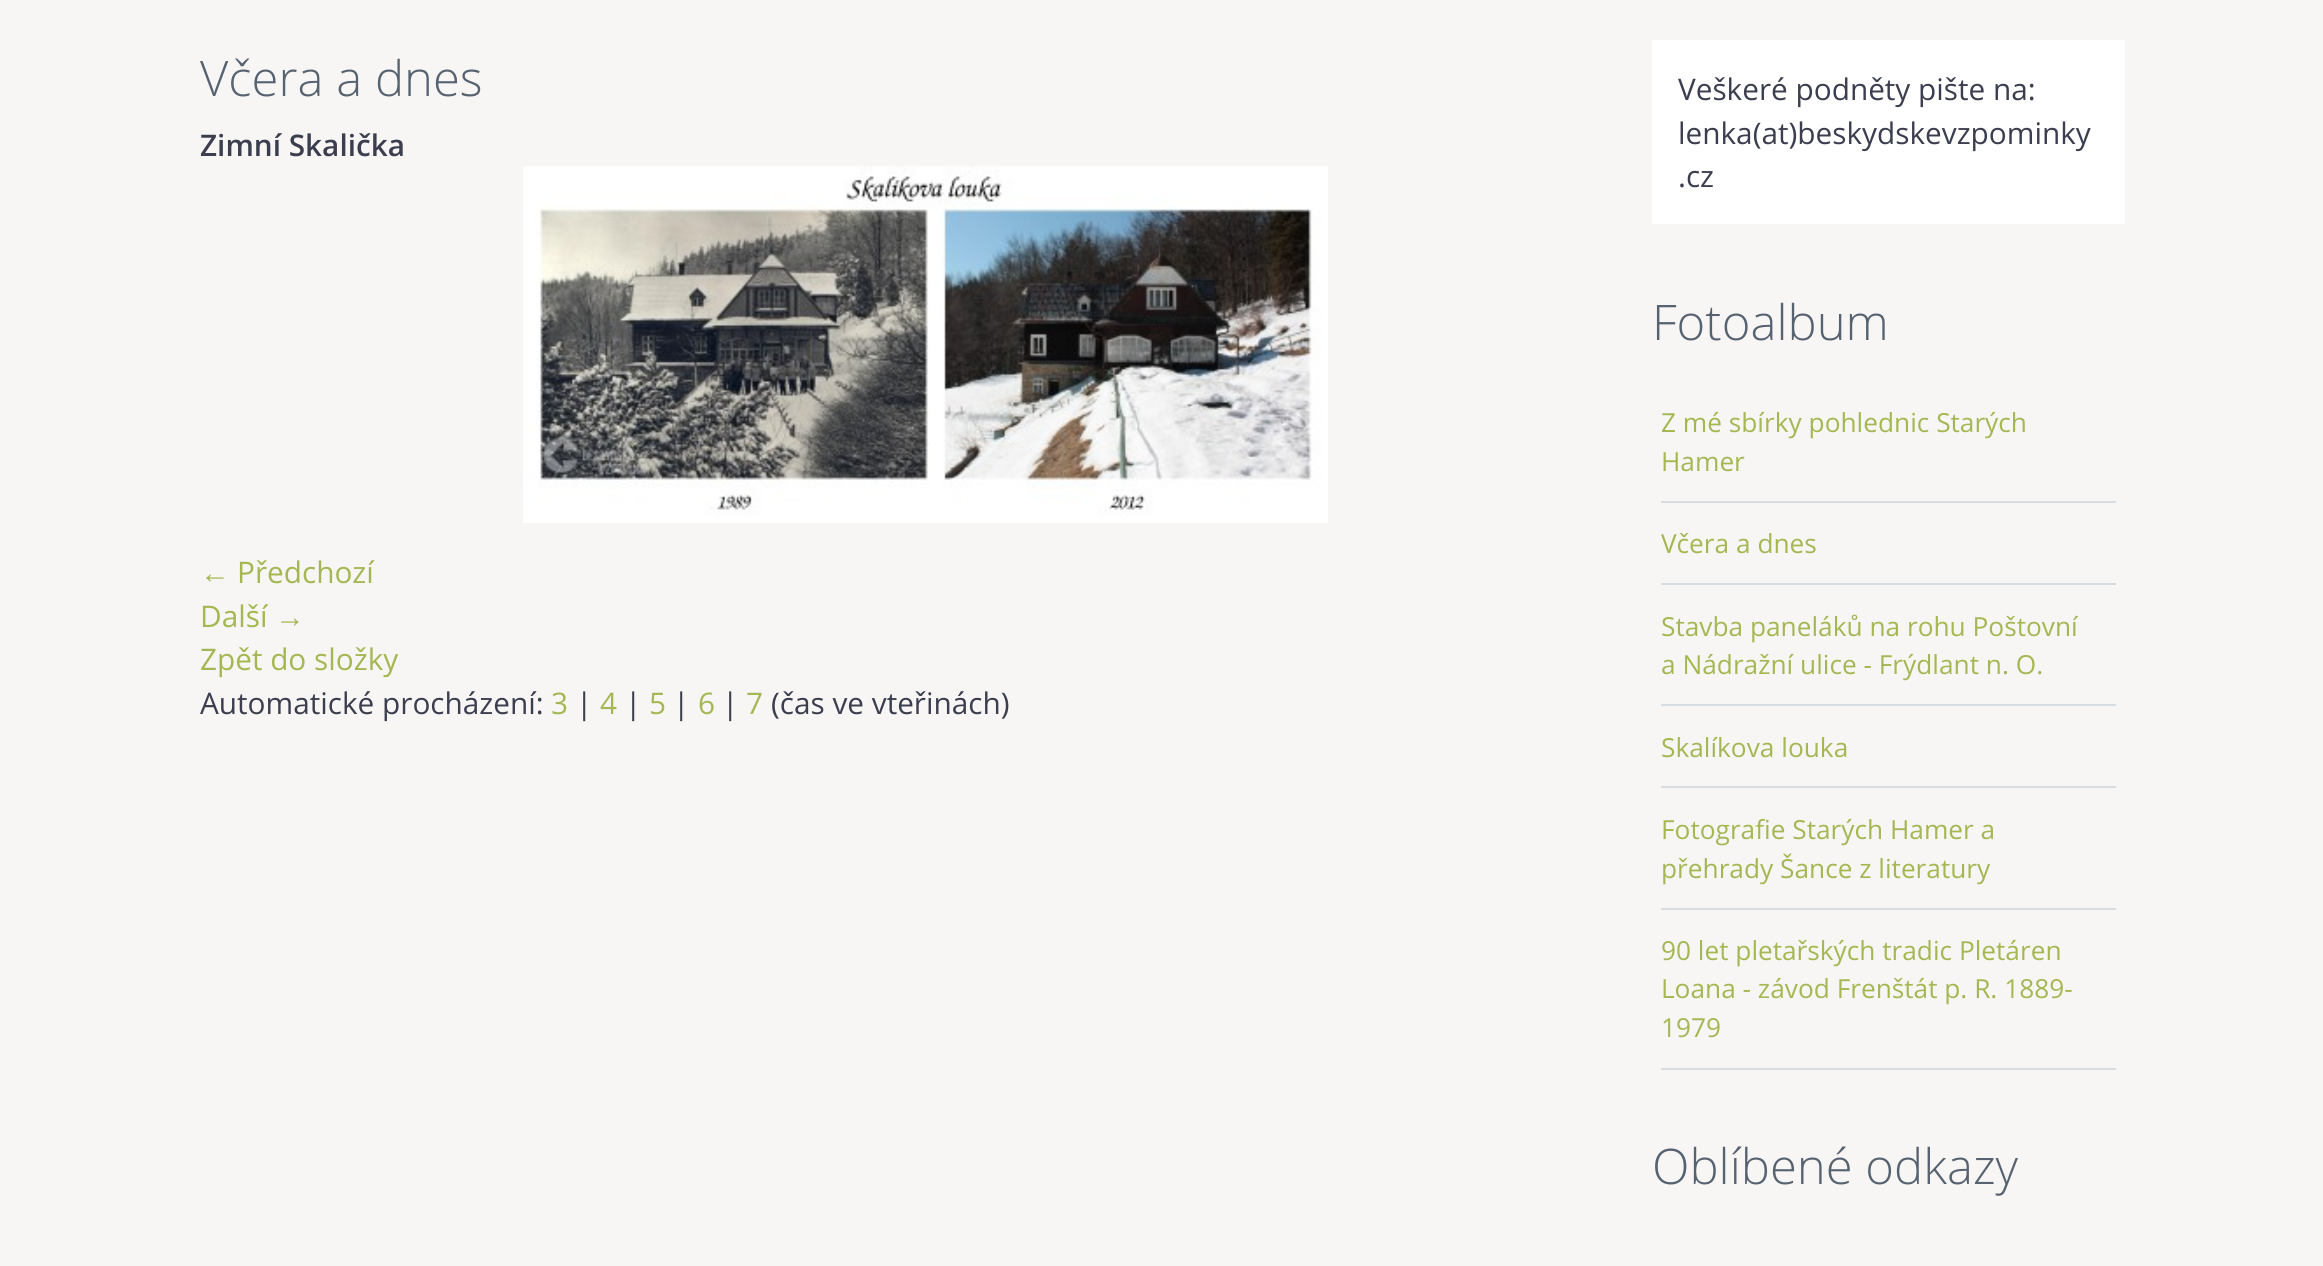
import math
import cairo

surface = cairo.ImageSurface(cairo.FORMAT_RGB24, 2323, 1266)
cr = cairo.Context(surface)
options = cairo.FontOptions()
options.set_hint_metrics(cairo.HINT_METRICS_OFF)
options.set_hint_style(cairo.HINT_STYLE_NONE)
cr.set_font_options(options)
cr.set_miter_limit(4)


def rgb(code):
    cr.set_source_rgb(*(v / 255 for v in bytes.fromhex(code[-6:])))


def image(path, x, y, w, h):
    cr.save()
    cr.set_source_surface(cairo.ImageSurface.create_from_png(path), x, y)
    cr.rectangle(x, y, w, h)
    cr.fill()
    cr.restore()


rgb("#f7f6f4")
cr.paint()
image("img/1.png", 523, 166, 805, 357)
for x, y, w, h, color in [
    (1652, 40, 473, 184, "#ffffff"),
    (1661, 501, 455, 2, "#d6dde3"),
    (1661, 583, 455, 2, "#d6dde3"),
    (1661, 704, 455, 2, "#d6dde3"),
    (1661, 786, 455, 2, "#d6dde3"),
    (1661, 908, 455, 2, "#d6dde3"),
    (1661, 1068, 455, 2, "#d6dde3"),
]:
    rgb(color)
    cr.rectangle(x, y, w, h)
    cr.fill()
cr.select_font_face("Open Sans Light")
cr.set_font_size(49)
rgb("#566270")
cr.move_to(200, 96)
cr.show_text("Včera a dnes")
cr.select_font_face("Open Sans SemiBold")
cr.set_font_size(29.75)
rgb("#3b3e4f")
cr.move_to(200, 156)
cr.show_text("Zimní Skalička")
cr.select_font_face("Liberation Serif")
rgb("#a5b753")
cr.move_to(200, 583)
cr.show_text("←")
cr.select_font_face("Open Sans")
cr.move_to(237, 583)
cr.show_text("Předchozí")
cr.move_to(200, 627)
cr.show_text("Další")
cr.select_font_face("Liberation Serif")
cr.move_to(275, 627)
cr.show_text("→")
cr.select_font_face("Open Sans")
cr.move_to(200, 670)
cr.show_text("Zpět do složky")
rgb("#3b3e4f")
cr.move_to(200, 714)
cr.show_text("Automatické procházení:")
rgb("#a5b753")
cr.move_to(551, 714)
cr.show_text("3")
rgb("#3b3e4f")
cr.move_to(576, 714)
cr.show_text("|")
rgb("#a5b753")
cr.move_to(600, 714)
cr.show_text("4")
rgb("#3b3e4f")
cr.move_to(625, 714)
cr.show_text("|")
rgb("#a5b753")
cr.move_to(649, 714)
cr.show_text("5")
rgb("#3b3e4f")
cr.move_to(673, 714)
cr.show_text("|")
rgb("#a5b753")
cr.move_to(698, 714)
cr.show_text("6")
rgb("#3b3e4f")
cr.move_to(722, 714)
cr.show_text("|")
rgb("#a5b753")
cr.move_to(746, 714)
cr.show_text("7")
rgb("#3b3e4f")
for x, y, s in [
    (771, 714, "(čas ve vteřinách)"),
    (1678, 100, "Veškeré podněty pište na:"),
    (1678, 144, "lenka(at)beskydskevzpominky"),
    (1678, 187, ".cz"),
]:
    cr.move_to(x, y)
    cr.show_text(s)
cr.select_font_face("Open Sans Light")
cr.set_font_size(49)
rgb("#566270")
cr.move_to(1652, 340)
cr.show_text("Fotoalbum")
cr.select_font_face("Open Sans")
cr.set_font_size(26.25)
rgb("#a5b753")
for x, y, s in [
    (1661, 432, "Z mé sbírky pohlednic Starých"),
    (1661, 471, "Hamer"),
    (1661, 553, "Včera a dnes"),
    (1661, 636, "Stavba paneláků na rohu Poštovní"),
    (1661, 674, "a Nádražní ulice - Frýdlant n. O."),
    (1661, 757, "Skalíkova louka"),
    (1661, 839, "Fotografie Starých Hamer a"),
    (1661, 878, "přehrady Šance z literatury"),
    (1661, 960, "90 let pletařských tradic Pletáren"),
    (1661, 998, "Loana - závod Frenštát p. R. 1889-"),
    (1661, 1037, "1979"),
]:
    cr.move_to(x, y)
    cr.show_text(s)
cr.select_font_face("Open Sans Light")
cr.set_font_size(49)
rgb("#566270")
cr.move_to(1652, 1184)
cr.show_text("Oblíbené odkazy")
surface.write_to_png("page.png")
